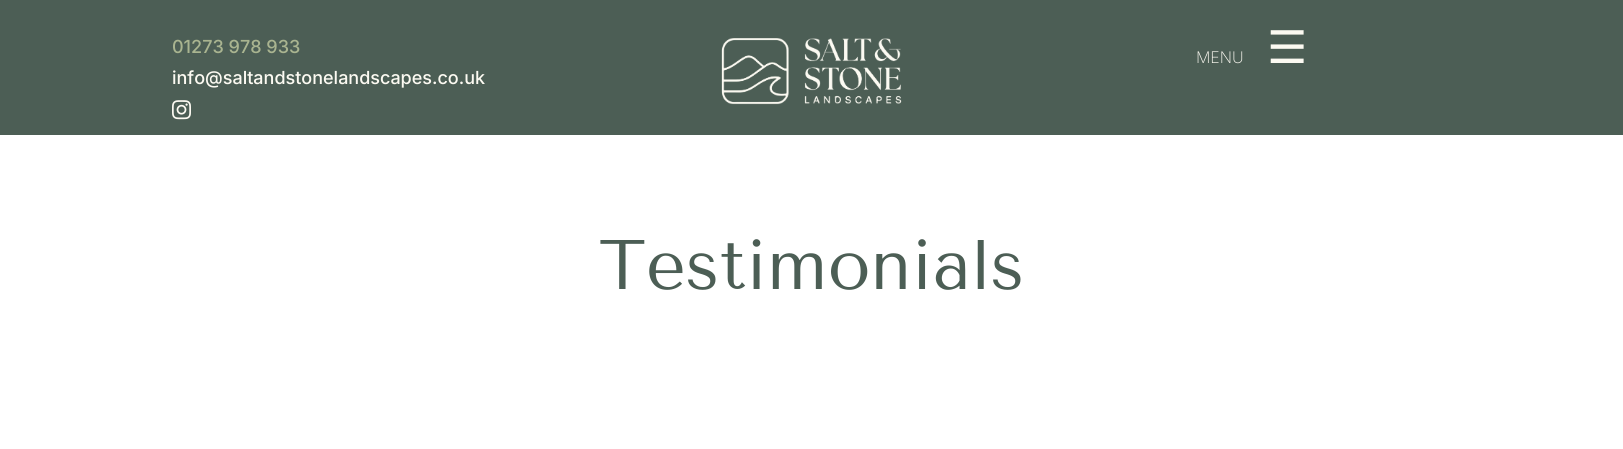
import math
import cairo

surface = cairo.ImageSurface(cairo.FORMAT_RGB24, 1623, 449)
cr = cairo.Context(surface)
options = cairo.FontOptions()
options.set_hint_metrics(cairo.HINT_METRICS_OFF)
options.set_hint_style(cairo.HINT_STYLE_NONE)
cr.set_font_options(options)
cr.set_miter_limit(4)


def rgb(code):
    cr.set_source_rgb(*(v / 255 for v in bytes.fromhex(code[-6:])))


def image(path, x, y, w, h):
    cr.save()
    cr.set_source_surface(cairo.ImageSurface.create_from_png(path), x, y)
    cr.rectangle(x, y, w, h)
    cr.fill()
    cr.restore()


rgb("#ffffff")
cr.paint()
rgb("#4c5e55")
cr.rectangle(0, 0, 1623, 135)
cr.fill()
image("img/1.png", 172, 100, 19, 20)
image("img/2.png", 721, 38, 181, 67)
cr.select_font_face("Inter Medium")
cr.set_font_size(18)
rgb("#a9b490")
cr.move_to(172, 53)
cr.show_text("01273 978 933")
rgb("#fcfaf2")
cr.move_to(172, 84)
cr.show_text("info@saltandstonelandscapes.co.uk")
cr.select_font_face("Inter ExtraLight")
cr.set_font_size(16)
cr.move_to(1196, 63)
cr.show_text("MENU")
cr.select_font_face("DejaVu Sans")
cr.set_font_size(45)
cr.move_to(1267, 63)
cr.show_text("☰")
cr.select_font_face("Tenor Sans")
cr.set_font_size(70)
rgb("#4c5e55")
cr.move_to(599, 289)
cr.show_text("Testimonials")
surface.write_to_png("page.png")
